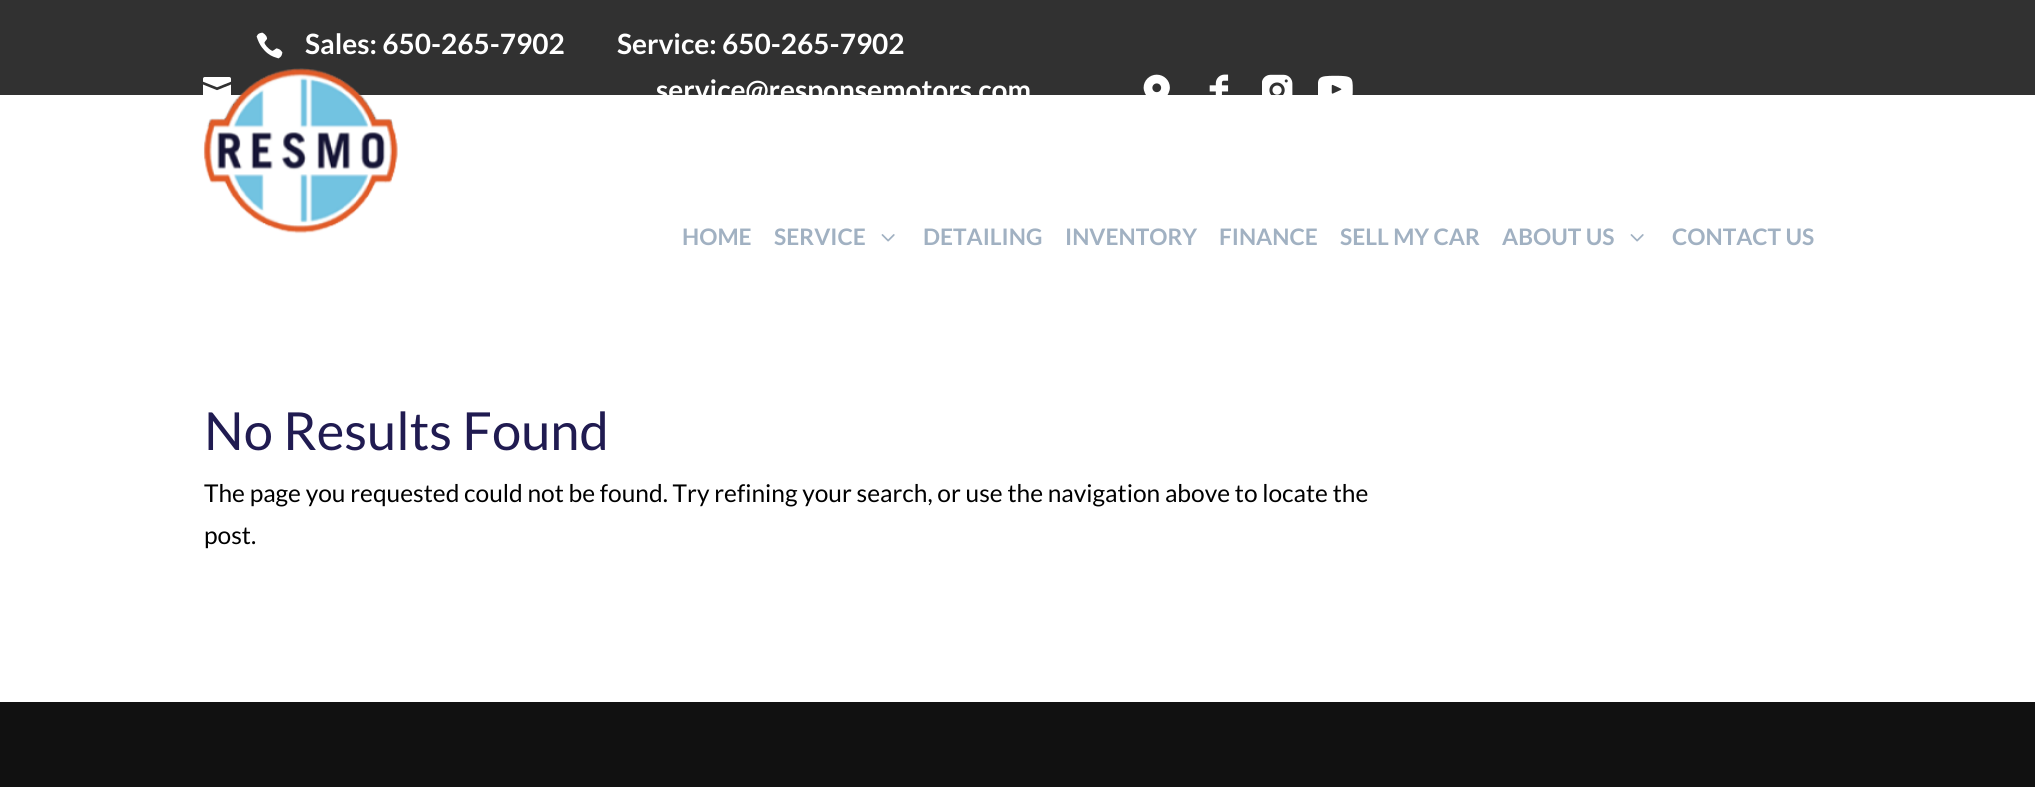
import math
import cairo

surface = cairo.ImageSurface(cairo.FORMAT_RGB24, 2035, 787)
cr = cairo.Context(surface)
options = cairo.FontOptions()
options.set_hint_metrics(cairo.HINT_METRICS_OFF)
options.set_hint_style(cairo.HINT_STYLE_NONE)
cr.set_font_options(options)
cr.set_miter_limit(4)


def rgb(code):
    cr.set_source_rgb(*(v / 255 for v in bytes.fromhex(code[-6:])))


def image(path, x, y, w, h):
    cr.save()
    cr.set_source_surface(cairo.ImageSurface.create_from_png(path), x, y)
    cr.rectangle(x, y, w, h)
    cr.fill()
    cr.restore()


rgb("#ffffff")
cr.paint()
rgb("#313131")
cr.rectangle(0, 0, 2035, 95)
cr.fill()
image("img/1.png", 256, 32, 27, 27)
image("img/2.png", 203, 77, 28, 18)
image("img/3.png", 1143, 74, 27, 21)
image("img/4.png", 1209, 74, 20, 21)
image("img/5.png", 1262, 74, 31, 21)
image("img/6.png", 1318, 75, 35, 20)
image("img/7.png", 203, 68, 195, 166)
image("img/8.png", 881, 234, 14, 8)
image("img/8.png", 1630, 234, 14, 8)
rgb("#111111")
cr.rectangle(0, 702, 2035, 85)
cr.fill()
cr.select_font_face("Lato", cairo.FONT_SLANT_NORMAL, cairo.FONT_WEIGHT_BOLD)
cr.set_font_size(28)
rgb("#ffffff")
for x, y, s in [
    (305, 54, "Sales: 650-265-7902"),
    (617, 54, "Service: 650-265-7902"),
    (656, 100, "service@responsemotors.com"),
]:
    cr.move_to(x, y)
    cr.show_text(s)
cr.set_font_size(22.75)
rgb("#a1b1c2")
for x, y, s in [
    (682, 245, "HOME"),
    (774, 245, "SERVICE"),
    (923, 245, "DETAILING"),
    (1065, 245, "INVENTORY"),
    (1219, 245, "FINANCE"),
    (1340, 245, "SELL MY CAR"),
    (1502, 245, "ABOUT US"),
    (1672, 245, "CONTACT US"),
]:
    cr.move_to(x, y)
    cr.show_text(s)
cr.select_font_face("Lato")
cr.set_font_size(52.5)
rgb("#201b51")
cr.move_to(204, 450)
cr.show_text("No Results Found")
cr.set_font_size(24.5)
rgb("#000000")
cr.move_to(204, 502)
cr.show_text("The page you requested could not be found. Try refining your search, or use the navigation above to locate the")
cr.move_to(204, 544)
cr.show_text("post.")
surface.write_to_png("page.png")
